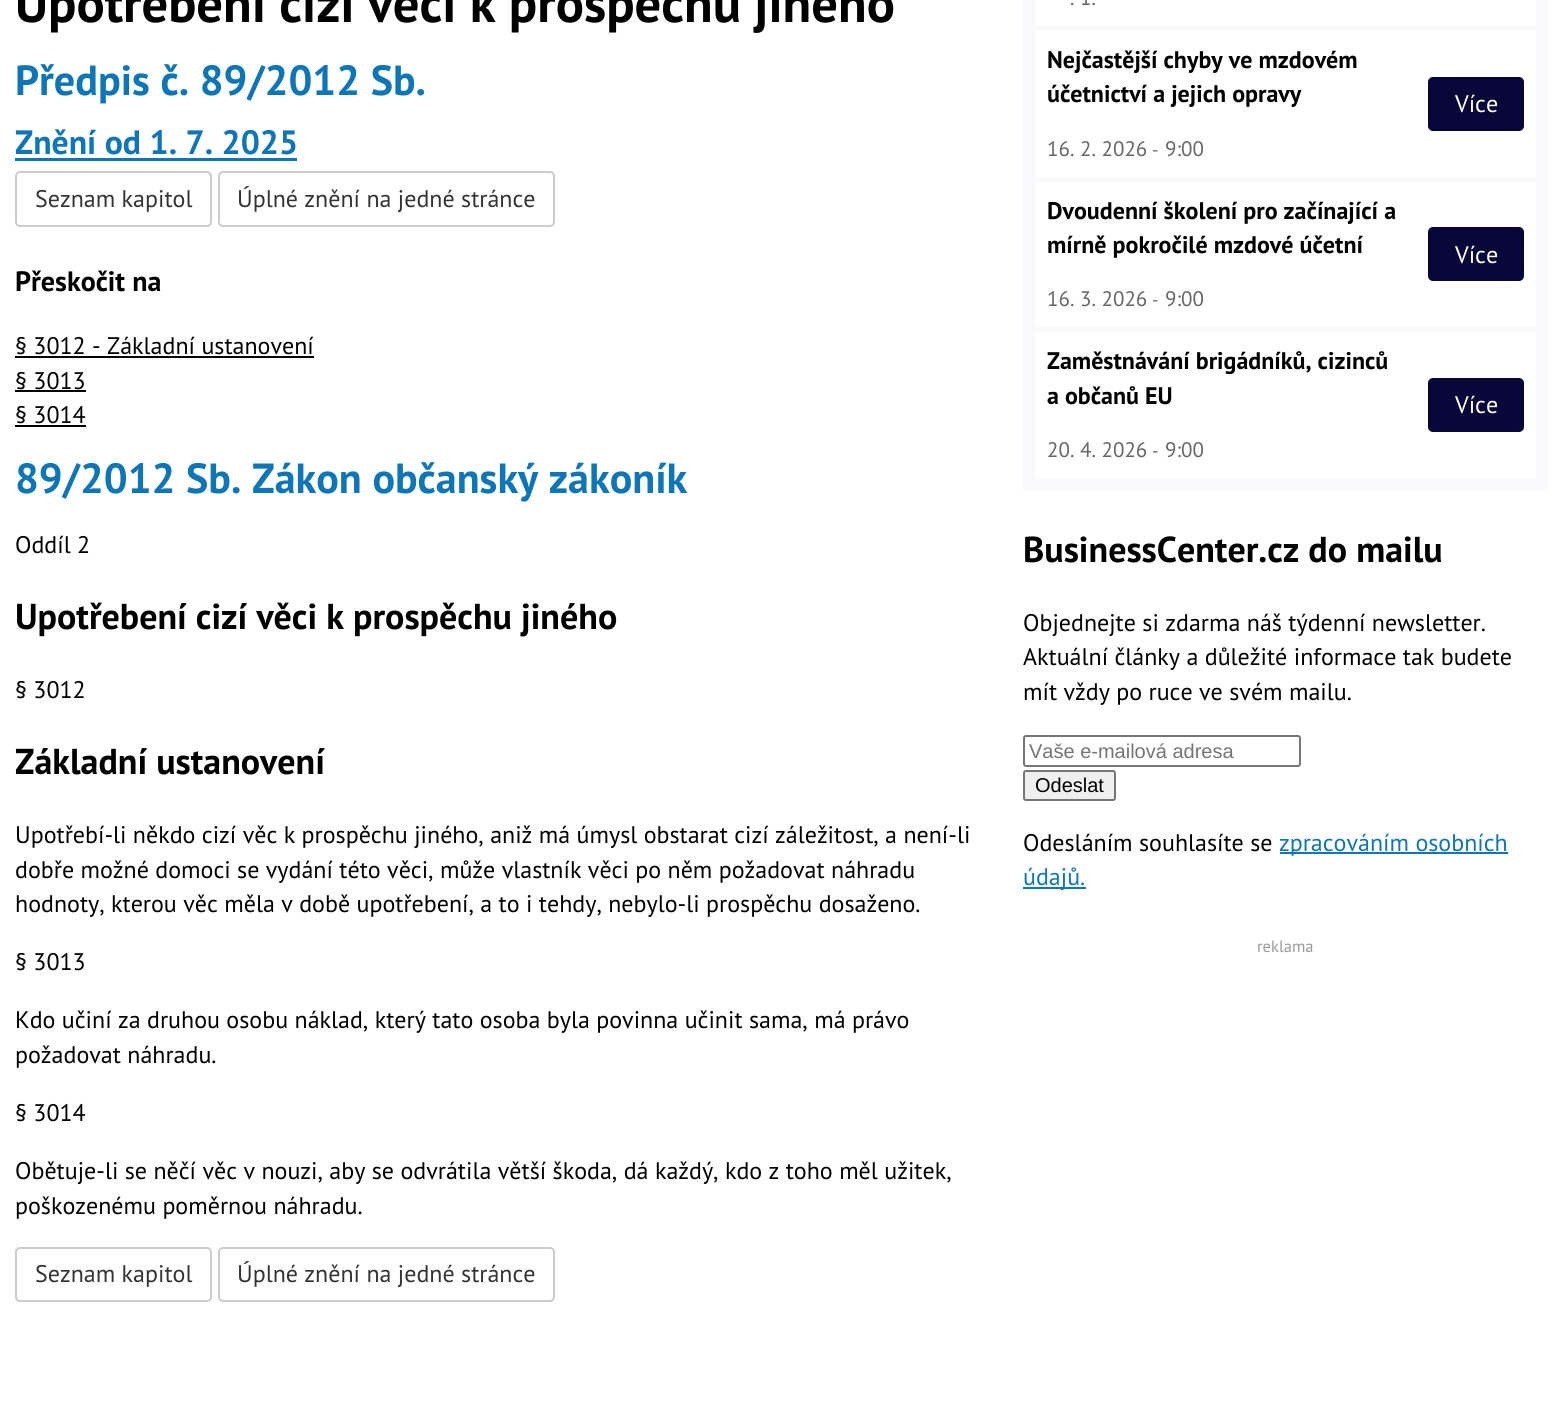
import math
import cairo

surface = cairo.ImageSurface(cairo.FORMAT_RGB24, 1562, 1424)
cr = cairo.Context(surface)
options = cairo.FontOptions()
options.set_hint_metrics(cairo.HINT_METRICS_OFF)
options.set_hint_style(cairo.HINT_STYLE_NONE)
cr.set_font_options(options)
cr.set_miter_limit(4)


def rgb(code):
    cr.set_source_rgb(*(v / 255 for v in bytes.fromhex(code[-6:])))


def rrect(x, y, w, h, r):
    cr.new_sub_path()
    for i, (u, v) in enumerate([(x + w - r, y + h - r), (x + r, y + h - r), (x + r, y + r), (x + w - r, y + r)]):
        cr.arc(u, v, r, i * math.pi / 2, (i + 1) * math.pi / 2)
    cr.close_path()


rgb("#ffffff")
cr.paint()
rgb("#0e75b6")
cr.rectangle(15, 158, 282, 3)
cr.fill()
rrect(16, 172, 195, 54, 4)
rgb("#cccccc")
cr.stroke()
rrect(219, 172, 335, 54, 4)
cr.stroke()
for x, y, w, h, color in [
    (15, 356, 299, 2, "#000000"),
    (15, 390, 71, 2, "#000000"),
    (15, 425, 71, 2, "#000000"),
]:
    rgb(color)
    cr.rectangle(x, y, w, h)
    cr.fill()
rrect(16, 1248, 195, 53, 4)
rgb("#cccccc")
cr.stroke()
rrect(219, 1248, 335, 53, 4)
cr.stroke()
for x, y, w, h, color in [
    (1023, 0, 525, 491, "#f9f9fb"),
    (1035, 0, 501, 26, "#ffffff"),
    (1035, 30, 501, 147, "#ffffff"),
]:
    rgb(color)
    cr.rectangle(x, y, w, h)
    cr.fill()
rgb("#09073a")
rrect(1428, 77, 96, 54, 5)
cr.fill()
rgb("#ffffff")
cr.rectangle(1035, 182, 501, 145)
cr.fill()
rgb("#09073a")
rrect(1428, 227, 96, 54, 5)
cr.fill()
rgb("#ffffff")
cr.rectangle(1035, 332, 501, 147)
cr.fill()
rgb("#09073a")
rrect(1428, 378, 96, 54, 5)
cr.fill()
rrect(1024, 736, 276, 30, 2)
rgb("#767676")
cr.stroke()
rgb("#efefef")
rrect(1024, 771, 91, 29, 2)
cr.fill_preserve()
rgb("#767676")
cr.stroke()
rgb("#0e75b6")
cr.rectangle(1280, 852, 228, 2)
cr.fill()
cr.rectangle(1023, 887, 63, 2)
cr.fill()
cr.select_font_face("PT Sans", cairo.FONT_SLANT_NORMAL, cairo.FONT_WEIGHT_BOLD)
cr.set_font_size(52.6)
rgb("#000000")
cr.move_to(15, 22)
cr.show_text("Upotřebení cizí věci k prospěchu jiného")
cr.set_font_size(42.1)
rgb("#0e75b6")
cr.move_to(15, 95)
cr.show_text("Předpis č. 89/2012 Sb.")
cr.set_font_size(33.75)
cr.move_to(15, 154)
cr.show_text("Znění od 1. 7. 2025")
cr.select_font_face("PT Sans")
cr.set_font_size(24)
rgb("#333333")
cr.move_to(35, 207)
cr.show_text("Seznam kapitol")
cr.move_to(237, 207)
cr.show_text("Úplné znění na jedné stránce")
cr.select_font_face("PT Sans", cairo.FONT_SLANT_NORMAL, cairo.FONT_WEIGHT_BOLD)
cr.set_font_size(28)
rgb("#000000")
cr.move_to(15, 291)
cr.show_text("Přeskočit na")
cr.select_font_face("PT Sans")
cr.set_font_size(24)
for x, y, s in [
    (15, 354, "§ 3012 - Základní ustanovení"),
    (15, 389, "§ 3013"),
    (15, 423, "§ 3014"),
]:
    cr.move_to(x, y)
    cr.show_text(s)
cr.select_font_face("PT Sans", cairo.FONT_SLANT_NORMAL, cairo.FONT_WEIGHT_BOLD)
cr.set_font_size(42.1)
rgb("#0e75b6")
cr.move_to(15, 493)
cr.show_text("89/2012 Sb. Zákon občanský zákoník")
cr.select_font_face("PT Sans")
cr.set_font_size(24)
rgb("#000000")
cr.move_to(15, 553)
cr.show_text("Oddíl 2")
cr.select_font_face("PT Sans", cairo.FONT_SLANT_NORMAL, cairo.FONT_WEIGHT_BOLD)
cr.set_font_size(36)
cr.move_to(15, 629)
cr.show_text("Upotřebení cizí věci k prospěchu jiného")
cr.select_font_face("PT Sans")
cr.set_font_size(24)
cr.move_to(15, 698)
cr.show_text("§ 3012")
cr.select_font_face("PT Sans", cairo.FONT_SLANT_NORMAL, cairo.FONT_WEIGHT_BOLD)
cr.set_font_size(36)
cr.move_to(15, 774)
cr.show_text("Základní ustanovení")
cr.select_font_face("PT Sans")
cr.set_font_size(24)
for x, y, s in [
    (15, 843, "Upotřebí-li někdo cizí věc k prospěchu jiného, aniž má úmysl obstarat cizí záležitost, a není-li"),
    (15, 878, "dobře možné domoci se vydání této věci, může vlastník věci po něm požadovat náhradu"),
    (15, 912, "hodnoty, kterou věc měla v době upotřebení, a to i tehdy, nebylo-li prospěchu dosaženo."),
    (15, 970, "§ 3013"),
    (15, 1028, "Kdo učiní za druhou osobu náklad, který tato osoba byla povinna učinit sama, má právo"),
    (15, 1063, "požadovat náhradu."),
    (15, 1121, "§ 3014"),
    (15, 1179, "Obětuje-li se něčí věc v nouzi, aby se odvrátila větší škoda, dá každý, kdo z toho měl užitek,"),
    (15, 1214, "poškozenému poměrnou náhradu."),
]:
    cr.move_to(x, y)
    cr.show_text(s)
rgb("#333333")
cr.move_to(35, 1282)
cr.show_text("Seznam kapitol")
cr.move_to(237, 1282)
cr.show_text("Úplné znění na jedné stránce")
cr.set_font_size(21)
rgb("#666666")
cr.move_to(1070, 5)
cr.show_text(". 1.")
cr.select_font_face("PT Sans", cairo.FONT_SLANT_NORMAL, cairo.FONT_WEIGHT_BOLD)
cr.set_font_size(24)
rgb("#000000")
cr.move_to(1047, 68)
cr.show_text("Nejčastější chyby ve mzdovém")
cr.move_to(1047, 102)
cr.show_text("účetnictví a jejich opravy")
cr.select_font_face("PT Sans")
rgb("#ffffff")
cr.move_to(1455, 112)
cr.show_text("Více")
cr.set_font_size(21)
rgb("#666666")
cr.move_to(1047, 156)
cr.show_text("16. 2. 2026")
cr.set_font_size(18)
cr.move_to(1152, 156)
cr.show_text("-")
cr.set_font_size(21)
cr.move_to(1165, 156)
cr.show_text("9:00")
cr.select_font_face("PT Sans", cairo.FONT_SLANT_NORMAL, cairo.FONT_WEIGHT_BOLD)
cr.set_font_size(24)
rgb("#000000")
cr.move_to(1047, 219)
cr.show_text("Dvoudenní školení pro začínající a")
cr.move_to(1047, 253)
cr.show_text("mírně pokročilé mzdové účetní")
cr.select_font_face("PT Sans")
rgb("#ffffff")
cr.move_to(1455, 263)
cr.show_text("Více")
cr.set_font_size(21)
rgb("#666666")
cr.move_to(1047, 306)
cr.show_text("16. 3. 2026")
cr.set_font_size(18)
cr.move_to(1152, 306)
cr.show_text("-")
cr.set_font_size(21)
cr.move_to(1165, 306)
cr.show_text("9:00")
cr.select_font_face("PT Sans", cairo.FONT_SLANT_NORMAL, cairo.FONT_WEIGHT_BOLD)
cr.set_font_size(24)
rgb("#000000")
cr.move_to(1047, 369)
cr.show_text("Zaměstnávání brigádníků, cizinců")
cr.move_to(1047, 404)
cr.show_text("a občanů EU")
cr.select_font_face("PT Sans")
rgb("#ffffff")
cr.move_to(1455, 413)
cr.show_text("Více")
cr.set_font_size(21)
rgb("#666666")
cr.move_to(1047, 457)
cr.show_text("20. 4. 2026")
cr.set_font_size(18)
cr.move_to(1152, 457)
cr.show_text("-")
cr.set_font_size(21)
cr.move_to(1165, 457)
cr.show_text("9:00")
cr.select_font_face("PT Sans", cairo.FONT_SLANT_NORMAL, cairo.FONT_WEIGHT_BOLD)
cr.set_font_size(36)
rgb("#000000")
cr.move_to(1023, 562)
cr.show_text("BusinessCenter.cz do mailu")
cr.select_font_face("PT Sans")
cr.set_font_size(24)
for x, y, s in [
    (1023, 631, "Objednejte si zdarma náš týdenní newsletter."),
    (1023, 665, "Aktuální články a důležité informace tak budete"),
    (1023, 700, "mít vždy po ruce ve svém mailu."),
]:
    cr.move_to(x, y)
    cr.show_text(s)
cr.select_font_face("Liberation Sans")
cr.set_font_size(20)
rgb("#757575")
cr.move_to(1029, 758)
cr.show_text("Vaše e-mailová adresa")
rgb("#000000")
cr.move_to(1035, 792)
cr.show_text("Odeslat")
cr.select_font_face("PT Sans")
cr.set_font_size(24)
cr.move_to(1023, 851)
cr.show_text("Odesláním souhlasíte se")
rgb("#0e75b6")
cr.move_to(1279, 851)
cr.show_text("zpracováním osobních")
cr.move_to(1023, 885)
cr.show_text("údajů.")
cr.set_font_size(16.5)
rgb("#999999")
cr.move_to(1257, 952)
cr.show_text("reklama")
surface.write_to_png("page.png")
